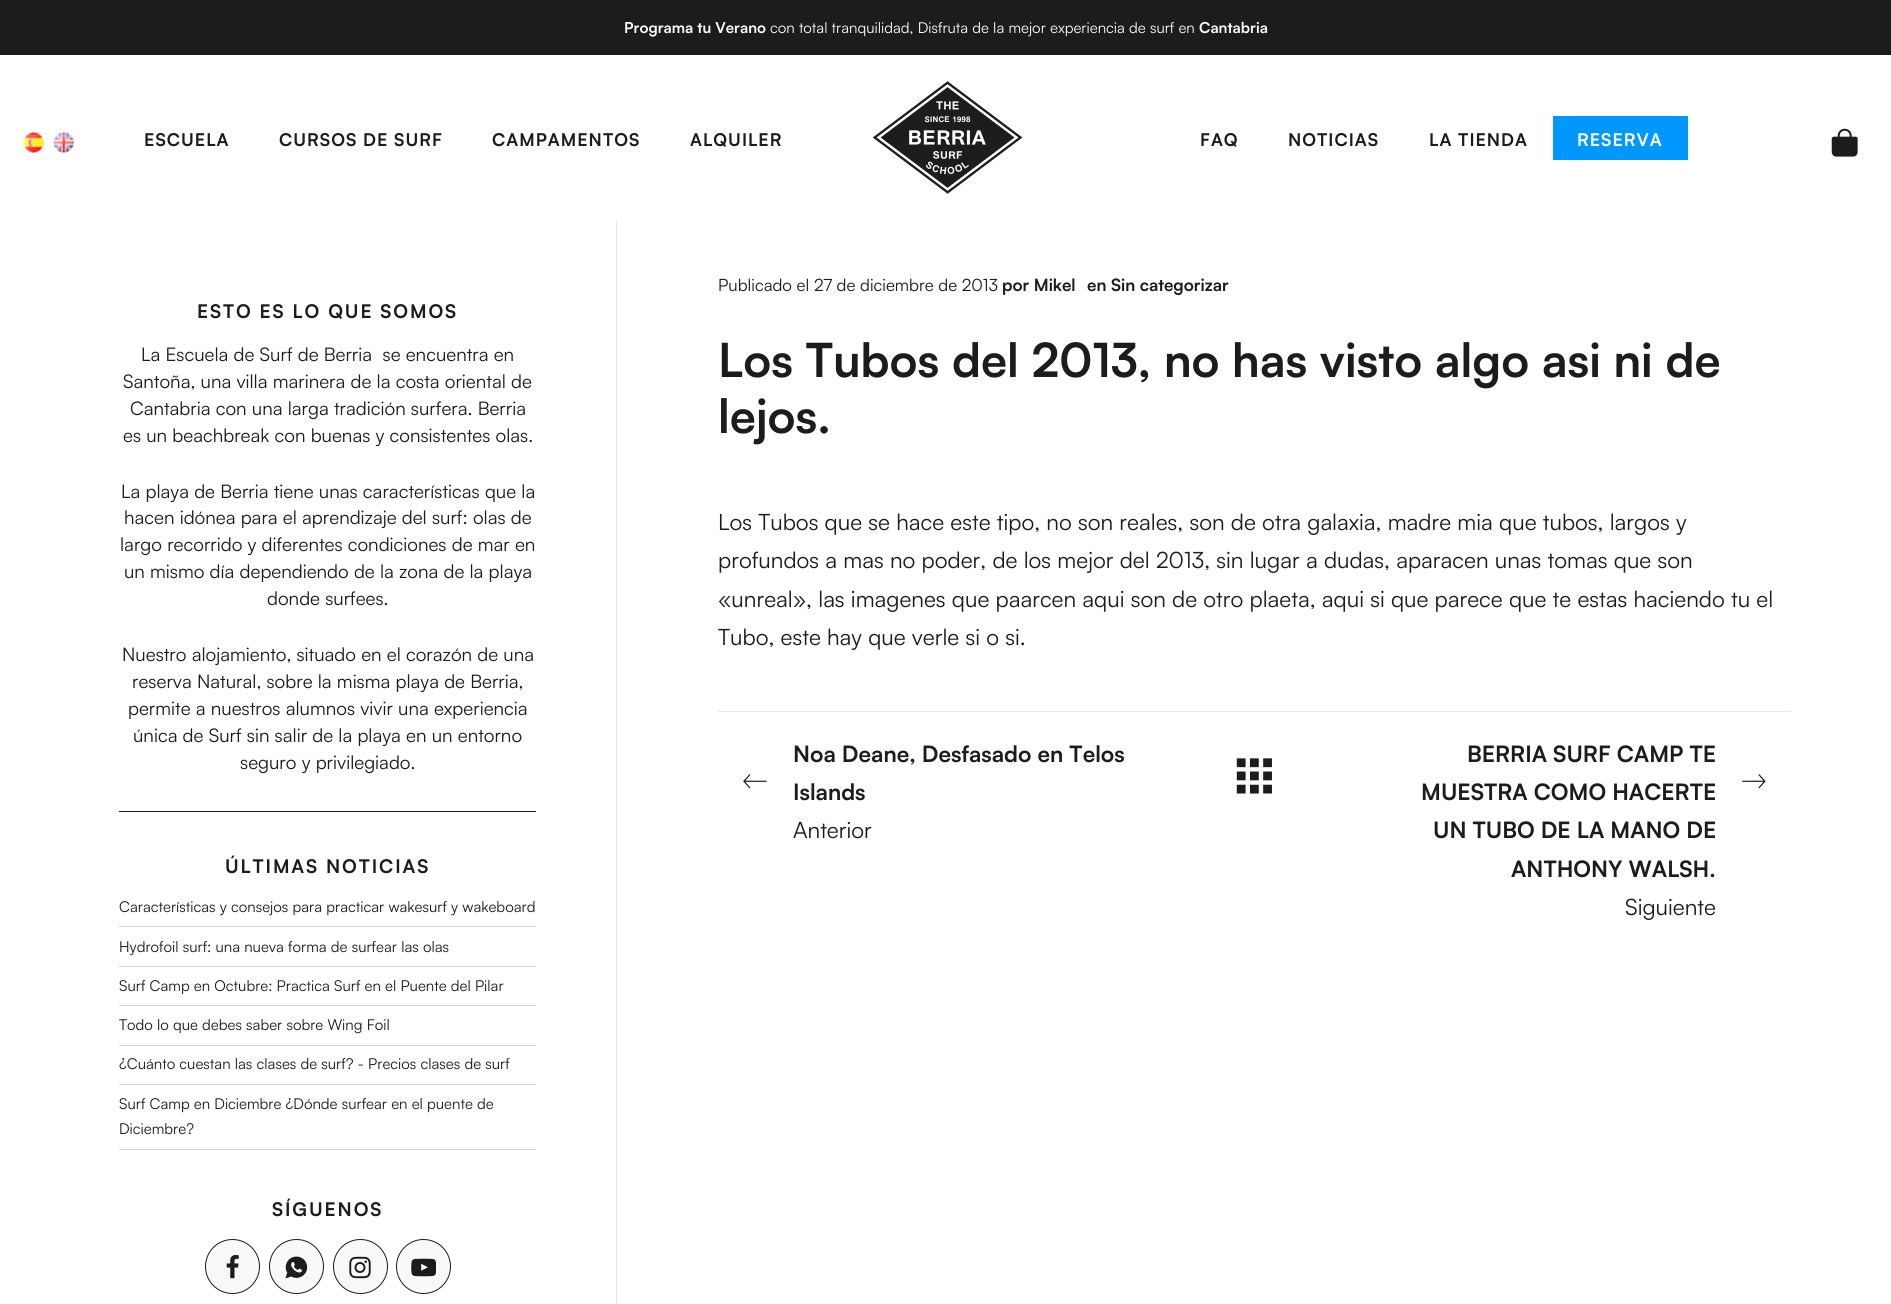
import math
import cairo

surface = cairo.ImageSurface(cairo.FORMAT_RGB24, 1891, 1304)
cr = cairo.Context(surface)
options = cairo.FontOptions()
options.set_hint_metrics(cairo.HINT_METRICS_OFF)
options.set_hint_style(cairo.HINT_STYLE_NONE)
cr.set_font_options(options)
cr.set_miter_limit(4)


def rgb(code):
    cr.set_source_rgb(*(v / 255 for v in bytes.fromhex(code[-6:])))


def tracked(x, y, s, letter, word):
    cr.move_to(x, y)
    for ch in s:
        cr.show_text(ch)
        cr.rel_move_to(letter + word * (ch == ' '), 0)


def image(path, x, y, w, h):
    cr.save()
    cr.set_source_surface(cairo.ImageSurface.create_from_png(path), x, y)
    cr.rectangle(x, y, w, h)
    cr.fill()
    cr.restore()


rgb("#ffffff")
cr.paint()
rgb("#1c1c1c")
cr.rectangle(0, 0, 1891, 55)
cr.fill()
image("img/1.png", 23, 132, 21, 21)
image("img/2.png", 53, 132, 21, 21)
image("img/3.png", 873, 81, 150, 113)
rgb("#0098ff")
cr.rectangle(1553, 116, 135, 44)
cr.fill()
image("img/4.png", 1831, 128, 27, 29)
for x, y, w, h, color in [
    (119, 811, 417, 1, "#1c1c1c"),
    (119, 926, 417, 1, "#d4d4d4"),
    (119, 966, 417, 1, "#d4d4d4"),
    (119, 1005, 417, 1, "#d4d4d4"),
    (119, 1045, 417, 1, "#d4d4d4"),
    (119, 1084, 417, 1, "#d4d4d4"),
    (119, 1149, 417, 1, "#d4d4d4"),
]:
    rgb(color)
    cr.rectangle(x, y, w, h)
    cr.fill()
rgb("#f9f9f9")
cr.arc(232.5, 1266.5, 27, 0, 2 * math.pi)
cr.fill_preserve()
rgb("#1c1c1c")
cr.set_line_width(1)
cr.stroke()
image("img/5.png", 226, 1255, 13, 24)
rgb("#f9f9f9")
cr.arc(296.5, 1266.5, 27, 0, 2 * math.pi)
cr.fill_preserve()
rgb("#1c1c1c")
cr.stroke()
image("img/6.png", 285, 1256, 23, 23)
rgb("#f9f9f9")
cr.arc(360.5, 1266.5, 27, 0, 2 * math.pi)
cr.fill_preserve()
rgb("#1c1c1c")
cr.stroke()
image("img/7.png", 349, 1256, 22, 23)
rgb("#f9f9f9")
cr.arc(423.5, 1266.5, 27, 0, 2 * math.pi)
cr.fill_preserve()
rgb("#1c1c1c")
cr.stroke()
image("img/8.png", 411, 1258, 25, 19)
rgb("#e6e6e6")
cr.rectangle(616, 221, 1, 1083)
cr.fill()
cr.rectangle(718, 711, 1073, 1)
cr.fill()
image("img/9.png", 743, 774, 24, 15)
image("img/10.png", 1236, 758, 36, 36)
image("img/11.png", 1742, 774, 24, 15)
cr.select_font_face("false", cairo.FONT_SLANT_NORMAL, cairo.FONT_WEIGHT_BOLD)
cr.set_font_size(15)
rgb("#fcfaf2")
cr.move_to(624, 33)
cr.show_text("Programa tu Verano")
cr.select_font_face("Satoshi")
cr.move_to(770, 33)
cr.show_text("con total tranquilidad, Disfruta de la mejor experiencia de surf en")
cr.select_font_face("false", cairo.FONT_SLANT_NORMAL, cairo.FONT_WEIGHT_BOLD)
cr.move_to(1199, 33)
cr.show_text("Cantabria")
cr.set_font_size(17.5)
rgb("#1c1c1c")
for x, y, s in [
    (144, 146, "ESCUELA"),
    (279, 146, "CURSOS DE SURF"),
    (492, 146, "CAMPAMENTOS"),
    (690, 146, "ALQUILER"),
    (1200, 146, "FAQ"),
    (1288, 146, "NOTICIAS"),
    (1429, 146, "LA TIENDA"),
]:
    tracked(x, y, s, 1, 0)
rgb("#ffffff")
tracked(1577, 146, "RESERVA", 1, 0)
cr.set_font_size(18.75)
rgb("#1c1c1c")
tracked(197, 318, "ESTO ES LO QUE SOMOS", 1.9, 0)
cr.select_font_face("Satoshi")
for x, y, s in [
    (141, 361, "La Escuela de Surf de Berria  se encuentra en"),
    (123, 388, "Santoña, una villa marinera de la costa oriental de"),
    (130, 415, "Cantabria con una larga tradición surfera. Berria"),
    (123, 442, "es un beachbreak con buenas y consistentes olas."),
    (121, 498, "La playa de Berria tiene unas características que la"),
    (124, 524, "hacen idónea para el aprendizaje del surf: olas de"),
    (120, 551, "largo recorrido y diferentes condiciones de mar en"),
    (124, 578, "un mismo día dependiendo de la zona de la playa"),
    (267, 605, "donde surfees."),
    (122, 661, "Nuestro alojamiento, situado en el corazón de una"),
    (132, 688, "reserva Natural, sobre la misma playa de Berria,"),
    (128, 715, "permite a nuestros alumnos vivir una experiencia"),
    (133, 742, "única de Surf sin salir de la playa en un entorno"),
    (240, 769, "seguro y privilegiado."),
]:
    cr.move_to(x, y)
    cr.show_text(s)
cr.select_font_face("false", cairo.FONT_SLANT_NORMAL, cairo.FONT_WEIGHT_BOLD)
tracked(225, 873, "ÚLTIMAS NOTICIAS", 1.9, 0)
cr.select_font_face("Satoshi")
cr.set_font_size(15)
for x, y, s in [
    (119, 912, "Características y consejos para practicar wakesurf y wakeboard"),
    (119, 952, "Hydrofoil surf: una nueva forma de surfear las olas"),
    (119, 991, "Surf Camp en Octubre: Practica Surf en el Puente del Pilar"),
    (119, 1030, "Todo lo que debes saber sobre Wing Foil"),
    (119, 1069, "¿Cuánto cuestan las clases de surf? - Precios clases de surf"),
    (119, 1109, "Surf Camp en Diciembre ¿Dónde surfear en el puente de"),
    (119, 1134, "Diciembre?"),
]:
    cr.move_to(x, y)
    cr.show_text(s)
cr.select_font_face("false", cairo.FONT_SLANT_NORMAL, cairo.FONT_WEIGHT_BOLD)
cr.set_font_size(18.75)
tracked(272, 1216, "SÍGUENOS", 1.9, 0)
cr.select_font_face("Satoshi")
cr.set_font_size(16.9)
cr.move_to(718, 291)
cr.show_text("Publicado el 27 de diciembre de 2013")
cr.select_font_face("false", cairo.FONT_SLANT_NORMAL, cairo.FONT_WEIGHT_BOLD)
cr.move_to(1002, 291)
cr.show_text("por Mikel")
cr.move_to(1087, 291)
cr.show_text("en Sin categorizar")
cr.set_font_size(46.9)
cr.move_to(718, 377)
cr.show_text("Los Tubos del 2013, no has visto algo asi ni de")
cr.move_to(718, 433)
cr.show_text("lejos.")
cr.select_font_face("Satoshi")
cr.set_font_size(22.5)
for x, y, s in [
    (718, 530, "Los Tubos que se hace este tipo, no son reales, son de otra galaxia, madre mia que tubos, largos y"),
    (718, 568, "profundos a mas no poder, de los mejor del 2013, sin lugar a dudas, aparacen unas tomas que son"),
    (718, 607, "«unreal», las imagenes que paarcen aqui son de otro plaeta, aqui si que parece que te estas haciendo tu el"),
    (718, 645, "Tubo, este hay que verle si o si."),
]:
    cr.move_to(x, y)
    cr.show_text(s)
cr.select_font_face("false", cairo.FONT_SLANT_NORMAL, cairo.FONT_WEIGHT_BOLD)
cr.move_to(793, 762)
cr.show_text("Noa Deane, Desfasado en Telos")
cr.move_to(793, 800)
cr.show_text("Islands")
cr.select_font_face("Satoshi")
cr.move_to(793, 838)
cr.show_text("Anterior")
cr.select_font_face("false", cairo.FONT_SLANT_NORMAL, cairo.FONT_WEIGHT_BOLD)
for x, y, s in [
    (1467, 762, "BERRIA SURF CAMP TE"),
    (1421, 800, "MUESTRA COMO HACERTE"),
    (1433, 838, "UN TUBO DE LA MANO DE"),
    (1511, 877, "ANTHONY WALSH."),
]:
    cr.move_to(x, y)
    cr.show_text(s)
cr.select_font_face("Satoshi")
cr.move_to(1625, 915)
cr.show_text("Siguiente")
surface.write_to_png("page.png")
